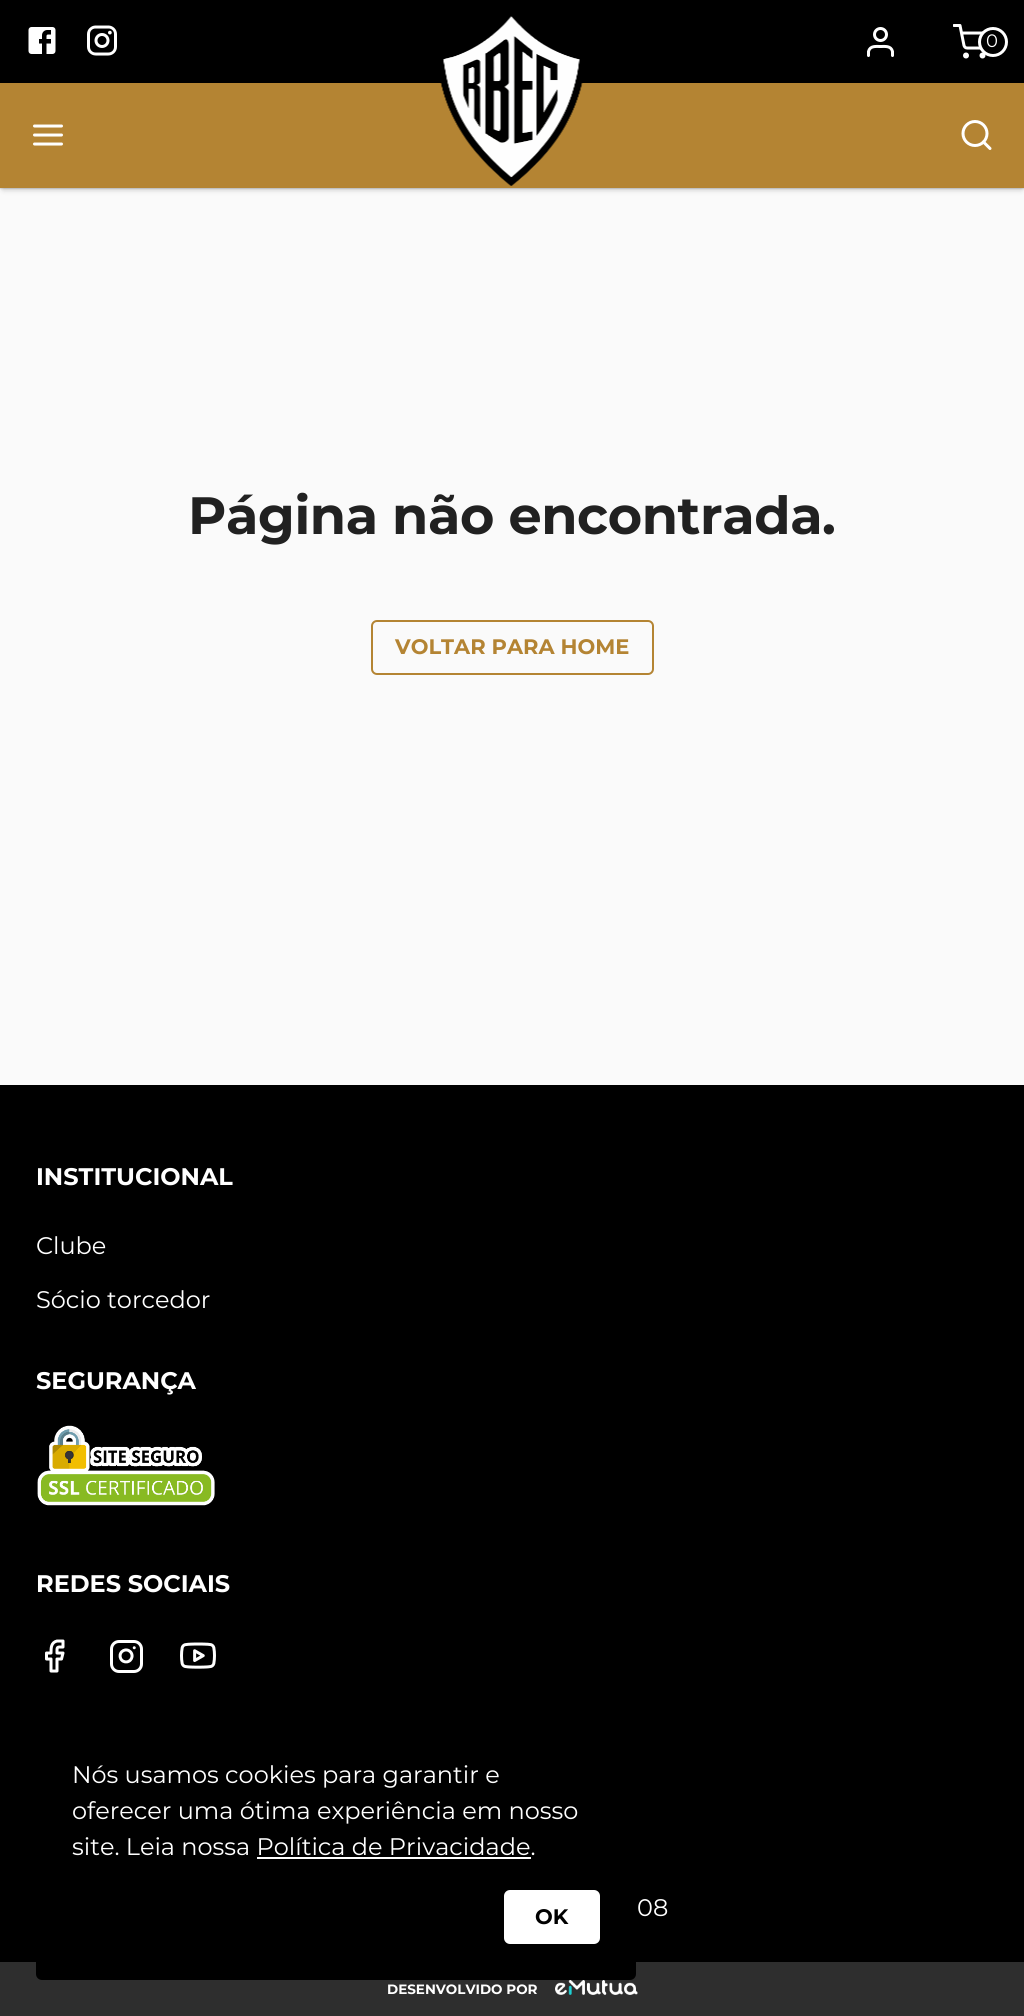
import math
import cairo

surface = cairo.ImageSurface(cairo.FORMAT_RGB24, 1024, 2016)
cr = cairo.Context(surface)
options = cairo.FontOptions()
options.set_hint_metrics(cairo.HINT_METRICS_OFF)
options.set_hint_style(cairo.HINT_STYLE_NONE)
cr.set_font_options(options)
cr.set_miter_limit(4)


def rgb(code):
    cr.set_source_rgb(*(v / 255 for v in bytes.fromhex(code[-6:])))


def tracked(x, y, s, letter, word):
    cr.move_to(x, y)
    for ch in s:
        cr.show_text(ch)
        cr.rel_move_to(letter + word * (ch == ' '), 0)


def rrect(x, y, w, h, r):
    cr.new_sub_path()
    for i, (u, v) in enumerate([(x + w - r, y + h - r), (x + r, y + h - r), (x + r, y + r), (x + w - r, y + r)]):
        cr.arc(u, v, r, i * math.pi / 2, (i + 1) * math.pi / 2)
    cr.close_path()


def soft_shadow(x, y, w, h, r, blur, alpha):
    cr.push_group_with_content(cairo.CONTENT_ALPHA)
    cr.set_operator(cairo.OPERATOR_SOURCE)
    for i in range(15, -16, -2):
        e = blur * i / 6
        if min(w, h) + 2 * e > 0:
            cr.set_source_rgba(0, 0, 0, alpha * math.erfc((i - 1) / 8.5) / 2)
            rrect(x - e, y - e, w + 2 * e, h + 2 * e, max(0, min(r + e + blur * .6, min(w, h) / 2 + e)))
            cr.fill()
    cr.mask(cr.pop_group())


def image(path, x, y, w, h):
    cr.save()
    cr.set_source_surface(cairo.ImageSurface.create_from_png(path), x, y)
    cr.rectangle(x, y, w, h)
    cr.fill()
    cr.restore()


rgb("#fafafa")
cr.paint()
rgb("#000000")
soft_shadow(3, 8, 1019, 181, 0, 3, 0.25)
soft_shadow(0, 0, 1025, 188, 0, 1, 0.31)
rgb("#000000")
cr.rectangle(0, 0, 1024, 83)
cr.fill()
rgb("#b48433")
cr.rectangle(0, 83, 1024, 105)
cr.fill()
cr.new_path()
cr.move_to(34.5, 135)
cr.line_to(61.5, 135)
cr.move_to(34.5, 126)
cr.line_to(61.5, 126)
cr.move_to(34.5, 144)
cr.line_to(61.5, 144)
rgb("#ffffff")
cr.set_line_width(3)
cr.set_line_cap(cairo.LINE_CAP_ROUND)
cr.set_line_join(cairo.LINE_JOIN_ROUND)
cr.stroke()
image("img/1.png", 440, 16, 143, 170)
cr.arc(975, 133.5, 12, 0, 2 * math.pi)
cr.set_line_cap(cairo.LINE_CAP_BUTT)
cr.set_line_join(cairo.LINE_JOIN_MITER)
cr.stroke()
cr.new_path()
cr.move_to(990, 148.5)
cr.line_to(983.5, 142)
cr.set_line_cap(cairo.LINE_CAP_ROUND)
cr.set_line_join(cairo.LINE_JOIN_ROUND)
cr.stroke()
image("img/2.png", 28, 27, 28, 27)
image("img/3.png", 87, 25, 30, 31)
cr.new_path()
cr.move_to(892.5, 55.5)
cr.line_to(892.5, 51.5)
cr.curve_to(891, 45.5, 885, 46.5, 880.5, 46.5)
cr.curve_to(876, 46.5, 870, 45.5, 868.5, 51.5)
cr.line_to(868.5, 55.5)
cr.stroke()
cr.arc(880.5, 34.5, 6, 0, 2 * math.pi)
cr.set_line_cap(cairo.LINE_CAP_BUTT)
cr.set_line_join(cairo.LINE_JOIN_MITER)
cr.stroke()
cr.arc(966, 55.5, 1.5, 0, 2 * math.pi)
cr.stroke()
cr.arc(982.5, 55.5, 1.5, 0, 2 * math.pi)
cr.stroke()
cr.save()
cr.rectangle(953, 24, 36, 36)
cr.clip()
cr.new_path()
cr.move_to(954, 25.5)
cr.line_to(960, 25.5)
cr.line_to(964, 45.5)
cr.curve_to(964.5, 47, 965.5, 48, 967, 48)
cr.line_to(981.5, 48)
cr.curve_to(983, 48, 984.5, 47, 984.5, 45.5)
cr.line_to(987, 33)
cr.line_to(961.5, 33)
cr.set_line_cap(cairo.LINE_CAP_ROUND)
cr.set_line_join(cairo.LINE_JOIN_ROUND)
cr.stroke()
cr.restore()
rgb("#000000")
cr.arc(993, 42, 13.5, 0, 2 * math.pi)
cr.fill_preserve()
rgb("#ffffff")
cr.stroke()
rrect(372, 621, 281, 53, 5)
rgb("#b48433")
cr.set_line_width(2)
cr.stroke()
rgb("#000000")
cr.rectangle(0, 1085, 1024, 877)
cr.fill()
image("img/4.png", 37, 1425, 178, 81)
cr.new_path()
cr.move_to(63, 1641)
cr.line_to(57, 1641)
cr.curve_to(51, 1642.5, 51, 1648, 51, 1653)
cr.line_to(46.5, 1653)
cr.line_to(46.5, 1659)
cr.line_to(51, 1659)
cr.line_to(51, 1671)
cr.line_to(57, 1671)
cr.line_to(57, 1659)
cr.line_to(61.5, 1659)
cr.line_to(63, 1653)
cr.line_to(57, 1653)
cr.curve_to(57, 1646.5, 56.5, 1647, 63, 1647)
cr.close_path()
rgb("#ffffff")
cr.set_line_width(3)
cr.set_line_cap(cairo.LINE_CAP_ROUND)
cr.set_line_join(cairo.LINE_JOIN_ROUND)
cr.stroke()
image("img/5.png", 110, 1640, 33, 33)
image("img/6.png", 180, 1642, 36, 27)
rgb("#2e2e2e")
cr.rectangle(0, 1962, 1024, 54)
cr.fill()
image("img/7.png", 555, 1980, 83, 15)
rgb("#000000")
rrect(36, 1722, 600, 258, 6)
cr.fill()
rgb("#ffffff")
cr.rectangle(257, 1857, 274, 2)
cr.fill()
rrect(504, 1890, 96, 54, 6)
cr.fill()
cr.select_font_face("Montserrat")
cr.set_font_size(18)
cr.move_to(986, 47)
cr.show_text("0")
cr.select_font_face("Montserrat", cairo.FONT_SLANT_NORMAL, cairo.FONT_WEIGHT_BOLD)
cr.set_font_size(52.5)
rgb("#212121")
tracked(188, 534, "Página não encontrada.", -0.4, 0)
cr.set_font_size(21)
rgb("#b48433")
cr.move_to(395, 654)
cr.show_text("VOLTAR PARA HOME")
cr.set_font_size(24)
rgb("#ffffff")
cr.move_to(36, 1185)
cr.show_text("INSTITUCIONAL")
cr.select_font_face("Montserrat")
cr.move_to(36, 1254)
cr.show_text("Clube")
cr.move_to(36, 1308)
cr.show_text("Sócio torcedor")
cr.select_font_face("Montserrat", cairo.FONT_SLANT_NORMAL, cairo.FONT_WEIGHT_BOLD)
cr.move_to(36, 1389)
cr.show_text("SEGURANÇA")
cr.move_to(36, 1592)
cr.show_text("REDES SOCIAIS")
cr.select_font_face("Montserrat")
cr.move_to(637, 1916)
cr.show_text("08")
cr.select_font_face("Montserrat", cairo.FONT_SLANT_NORMAL, cairo.FONT_WEIGHT_BOLD)
cr.set_font_size(13.5)
cr.move_to(387, 1994)
cr.show_text("DESENVOLVIDO POR")
cr.select_font_face("Montserrat")
cr.set_font_size(24)
for x, y, s in [
    (72, 1783, "Nós usamos cookies para garantir e"),
    (72, 1819, "oferecer uma ótima experiência em nosso"),
    (72, 1855, "site. Leia nossa Política de Privacidade."),
]:
    cr.move_to(x, y)
    cr.show_text(s)
cr.select_font_face("Montserrat", cairo.FONT_SLANT_NORMAL, cairo.FONT_WEIGHT_BOLD)
cr.set_font_size(21)
rgb("#000000")
cr.move_to(535, 1924)
cr.show_text("OK")
surface.write_to_png("page.png")
